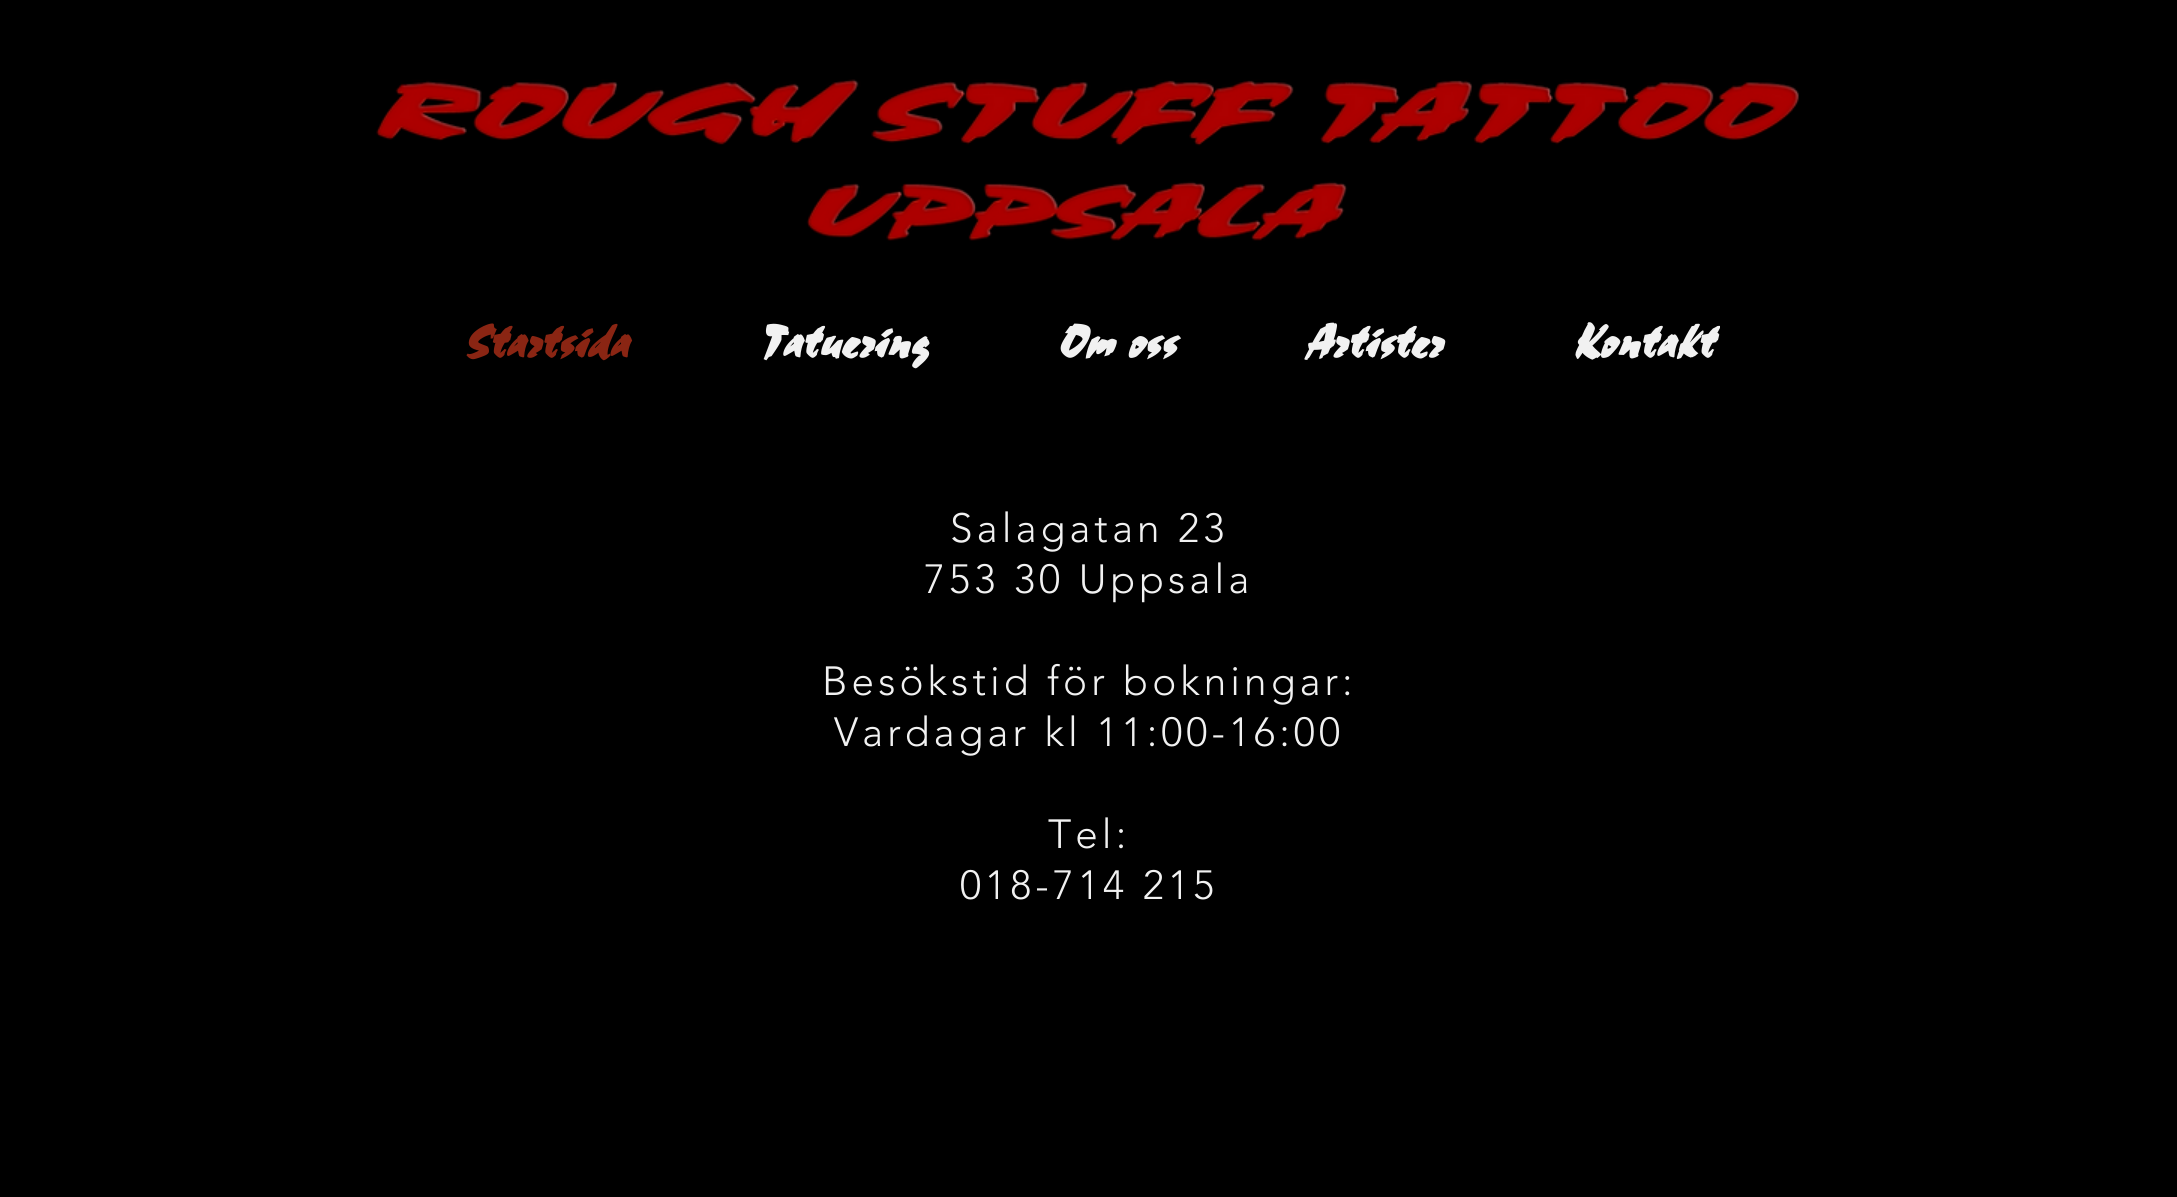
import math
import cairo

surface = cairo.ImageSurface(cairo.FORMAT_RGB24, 2177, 1197)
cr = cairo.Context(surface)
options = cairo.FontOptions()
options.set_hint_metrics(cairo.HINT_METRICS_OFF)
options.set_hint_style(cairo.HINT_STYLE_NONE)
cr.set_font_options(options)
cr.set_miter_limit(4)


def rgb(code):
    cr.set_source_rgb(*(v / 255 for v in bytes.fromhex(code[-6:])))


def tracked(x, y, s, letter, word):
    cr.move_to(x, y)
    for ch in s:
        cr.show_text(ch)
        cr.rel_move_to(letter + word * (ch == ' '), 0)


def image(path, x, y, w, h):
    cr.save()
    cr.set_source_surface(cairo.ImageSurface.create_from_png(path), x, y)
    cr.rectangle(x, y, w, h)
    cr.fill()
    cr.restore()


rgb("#000000")
cr.paint()
image("img/1.png", 376, 79, 1423, 162)
cr.select_font_face("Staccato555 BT", cairo.FONT_SLANT_ITALIC, cairo.FONT_WEIGHT_BOLD)
cr.set_font_size(49.5)
rgb("#8a2513")
cr.move_to(464, 357)
cr.show_text("Startsida")
rgb("#f1f1f1")
for x, y, s in [
    (758, 357, "Tatuering"),
    (1057, 357, "Om oss"),
    (1306, 357, "Artister"),
    (1573, 357, "Kontakt"),
]:
    cr.move_to(x, y)
    cr.show_text(s)
cr.select_font_face("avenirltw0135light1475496 Light")
cr.set_font_size(40.5)
for x, y, s in [
    (950, 542, "Salagatan 23"),
    (924, 593, "753 30 Uppsala"),
    (822, 695, "Besökstid för bokningar:"),
    (834, 746, "Vardagar kl 11:00-16:00"),
    (1048, 848, "Tel:"),
    (960, 899, "018-714 215"),
]:
    tracked(x, y, s, 4.05, 0)
surface.write_to_png("page.png")
